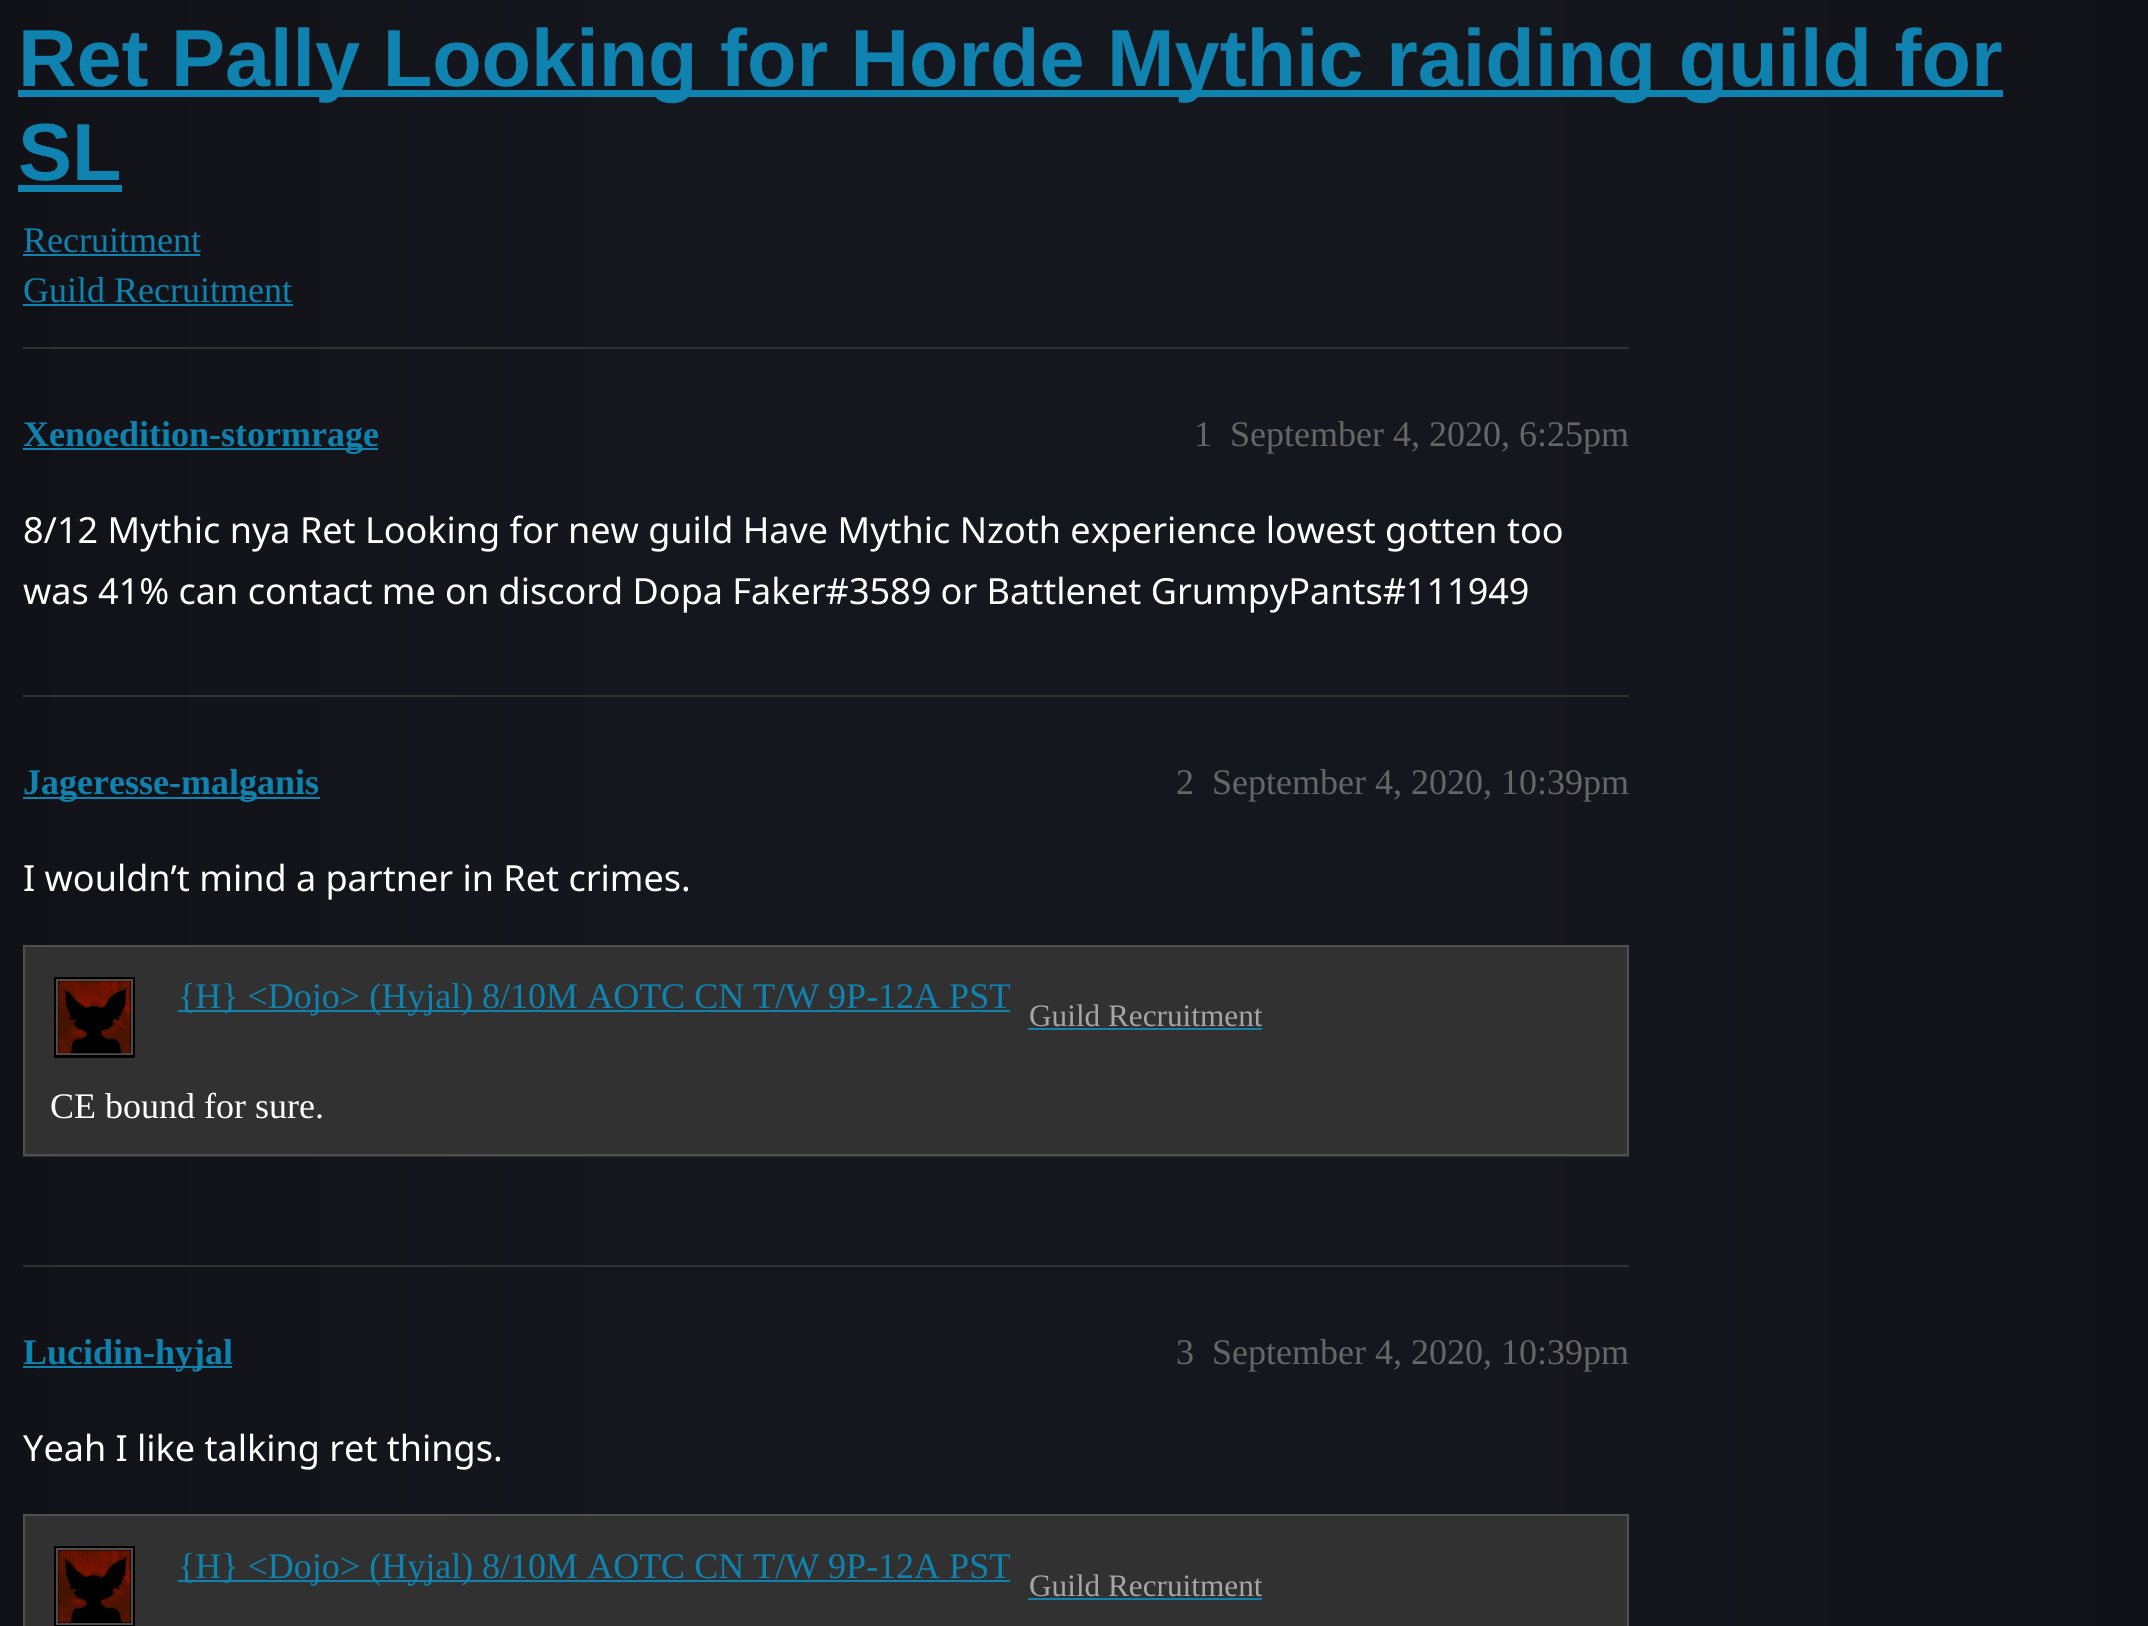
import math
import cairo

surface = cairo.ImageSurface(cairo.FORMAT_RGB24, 2148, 1626)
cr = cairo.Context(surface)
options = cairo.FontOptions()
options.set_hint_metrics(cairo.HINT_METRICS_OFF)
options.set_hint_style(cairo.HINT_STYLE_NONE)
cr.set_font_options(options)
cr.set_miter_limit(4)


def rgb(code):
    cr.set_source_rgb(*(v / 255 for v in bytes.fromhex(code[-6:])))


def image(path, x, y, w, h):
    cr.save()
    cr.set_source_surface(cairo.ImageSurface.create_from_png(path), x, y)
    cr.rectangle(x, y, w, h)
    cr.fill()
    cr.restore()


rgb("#ffffff")
cr.paint()
gradient = cairo.LinearGradient(0, 953, 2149, 953)
gradient.add_color_stop_rgba(0, 0.067, 0.071, 0.09, 1)
gradient.add_color_stop_rgba(0.3, 0.082, 0.09, 0.118, 1)
gradient.add_color_stop_rgba(0.7, 0.082, 0.09, 0.118, 1)
gradient.add_color_stop_rgba(1, 0.067, 0.071, 0.09, 1)
cr.set_source(gradient)
cr.rectangle(0, 0, 2148, 1626)
cr.fill()
for x, y, w, h, color in [
    (18, 90, 1985, 7, "#0f82af"),
    (18, 185, 104, 7, "#0f82af"),
    (23, 254, 177, 2, "#0f82af"),
    (23, 304, 270, 2, "#0f82af"),
    (23, 347, 1606, 2, "#313131"),
    (23, 448, 355, 2, "#0f82af"),
    (23, 695, 1606, 2, "#313131"),
    (23, 797, 297, 2, "#0f82af"),
    (23, 945, 1606, 212, "#313131"),
]:
    rgb(color)
    cr.rectangle(x, y, w, h)
    cr.fill()
rgb("#505050")
cr.new_path()
cr.move_to(22, 945)
cr.line_to(1629, 945)
cr.line_to(1627, 947)
cr.line_to(25, 947)
cr.close_path()
cr.fill()
cr.set_source_rgba(1, 1, 1, 0.15)
cr.new_path()
cr.move_to(1629, 945)
cr.line_to(1629, 1058)
cr.line_to(1627, 1058)
cr.line_to(1627, 947)
cr.close_path()
cr.fill()
cr.save()
cr.rectangle(23, 848, 1606, 345)
cr.clip()
rgb("#505050")
cr.new_path()
cr.move_to(22, 1058)
cr.line_to(22, 945)
cr.line_to(25, 947)
cr.line_to(25, 1058)
cr.close_path()
cr.fill()
cr.restore()
cr.rectangle(56.5, 979.5, 76, 76)
rgb("#000000")
cr.set_line_width(5)
cr.stroke()
cr.rectangle(57, 980, 75, 74)
rgb("#4d4d4d")
cr.set_line_width(2)
cr.stroke()
image("img/1.png", 58, 981, 73, 73)
rgb("#0f82af")
cr.rectangle(178, 1010, 832, 2)
cr.fill()
cr.rectangle(1028, 1028, 234, 2)
cr.fill()
rgb("#505050")
cr.new_path()
cr.move_to(1629, 1058)
cr.line_to(1629, 1156)
cr.line_to(1627, 1154)
cr.line_to(1627, 1058)
cr.close_path()
cr.fill()
cr.set_source_rgba(1, 1, 1, 0.15)
cr.new_path()
cr.move_to(1629, 1156)
cr.line_to(22, 1156)
cr.line_to(25, 1154)
cr.line_to(1627, 1154)
cr.close_path()
cr.fill()
cr.save()
cr.rectangle(23, 848, 1606, 345)
cr.clip()
cr.new_path()
cr.move_to(22, 1156)
cr.line_to(22, 1058)
cr.line_to(25, 1058)
cr.line_to(25, 1154)
cr.close_path()
cr.fill()
cr.restore()
for x, y, w, h, color in [
    (23, 1265, 1606, 2, "#313131"),
    (23, 1366, 209, 2, "#0f82af"),
    (23, 1514, 1606, 112, "#313131"),
]:
    rgb(color)
    cr.rectangle(x, y, w, h)
    cr.fill()
rgb("#505050")
cr.new_path()
cr.move_to(22, 1514)
cr.line_to(1629, 1514)
cr.line_to(1627, 1516)
cr.line_to(25, 1516)
cr.close_path()
cr.fill()
cr.set_source_rgba(1, 1, 1, 0.15)
cr.new_path()
cr.move_to(1629, 1514)
cr.line_to(1629, 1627)
cr.line_to(1627, 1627)
cr.line_to(1627, 1516)
cr.close_path()
cr.fill()
cr.save()
cr.rectangle(23, 1418, 1606, 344)
cr.clip()
rgb("#505050")
cr.new_path()
cr.move_to(22, 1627)
cr.line_to(22, 1514)
cr.line_to(25, 1516)
cr.line_to(25, 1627)
cr.close_path()
cr.fill()
cr.restore()
cr.rectangle(56.5, 1548.5, 76, 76)
rgb("#000000")
cr.set_line_width(5)
cr.stroke()
cr.rectangle(57, 1549, 75, 75)
rgb("#4d4d4d")
cr.set_line_width(2)
cr.stroke()
image("img/2.png", 58, 1550, 73, 73)
rgb("#0f82af")
cr.rectangle(178, 1580, 832, 2)
cr.fill()
cr.rectangle(1028, 1598, 234, 2)
cr.fill()
cr.select_font_face("Liberation Sans", cairo.FONT_SLANT_NORMAL, cairo.FONT_WEIGHT_BOLD)
cr.set_font_size(81)
cr.move_to(18, 86)
cr.show_text("Ret Pally Looking for Horde Mythic raiding guild for")
cr.move_to(18, 180)
cr.show_text("SL")
cr.select_font_face("Liberation Serif")
cr.set_font_size(36)
cr.move_to(23, 252)
cr.show_text("Recruitment")
cr.move_to(23, 302)
cr.show_text("Guild Recruitment")
cr.select_font_face("Liberation Serif", cairo.FONT_SLANT_NORMAL, cairo.FONT_WEIGHT_BOLD)
cr.move_to(23, 446)
cr.show_text("Xenoedition-stormrage")
cr.select_font_face("Liberation Serif")
rgb("#666666")
cr.move_to(1194, 446)
cr.show_text("1")
cr.move_to(1230, 446)
cr.show_text("September 4, 2020, 6:25pm")
cr.select_font_face("Noto Sans")
rgb("#ffffff")
cr.move_to(23, 543)
cr.show_text("8/12 Mythic nya Ret Looking for new guild Have Mythic Nzoth experience lowest gotten too")
cr.move_to(23, 604)
cr.show_text("was 41% can contact me on discord Dopa Faker#3589 or Battlenet GrumpyPants#111949")
cr.select_font_face("Liberation Serif", cairo.FONT_SLANT_NORMAL, cairo.FONT_WEIGHT_BOLD)
rgb("#0f82af")
cr.move_to(23, 794)
cr.show_text("Jageresse-malganis")
cr.select_font_face("Liberation Serif")
rgb("#666666")
cr.move_to(1176, 794)
cr.show_text("2")
cr.move_to(1212, 794)
cr.show_text("September 4, 2020, 10:39pm")
cr.select_font_face("Noto Sans")
rgb("#ffffff")
cr.move_to(23, 891)
cr.show_text("I wouldn’t mind a partner in Ret crimes.")
cr.save()
cr.rectangle(178, 977, 832, 40)
cr.clip()
cr.select_font_face("Liberation Serif")
rgb("#0f82af")
cr.move_to(178, 1008)
cr.show_text("{H} <Dojo> (Hyjal) 8/10M AOTC CN T/W 9P-12A PST")
cr.restore()
cr.save()
cr.rectangle(1028, 999, 234, 36)
cr.clip()
cr.select_font_face("Liberation Serif")
cr.set_font_size(31.25)
rgb("#a6a6a6")
cr.move_to(1029, 1026)
cr.show_text("Guild Recruitment")
cr.restore()
cr.select_font_face("Liberation Serif")
cr.move_to(50, 1118)
cr.show_text("CE bound for sure.")
cr.select_font_face("Liberation Serif", cairo.FONT_SLANT_NORMAL, cairo.FONT_WEIGHT_BOLD)
rgb("#0f82af")
cr.move_to(23, 1364)
cr.show_text("Lucidin-hyjal")
cr.select_font_face("Liberation Serif")
rgb("#666666")
cr.move_to(1176, 1364)
cr.show_text("3")
cr.move_to(1212, 1364)
cr.show_text("September 4, 2020, 10:39pm")
cr.select_font_face("Noto Sans")
rgb("#ffffff")
cr.move_to(23, 1461)
cr.show_text("Yeah I like talking ret things.")
cr.save()
cr.rectangle(178, 1546, 832, 40)
cr.clip()
cr.select_font_face("Liberation Serif")
rgb("#0f82af")
cr.move_to(178, 1578)
cr.show_text("{H} <Dojo> (Hyjal) 8/10M AOTC CN T/W 9P-12A PST")
cr.restore()
cr.save()
cr.rectangle(1028, 1568, 234, 36)
cr.clip()
cr.select_font_face("Liberation Serif")
cr.set_font_size(31.25)
rgb("#a6a6a6")
cr.move_to(1029, 1596)
cr.show_text("Guild Recruitment")
cr.restore()
surface.write_to_png("page.png")
